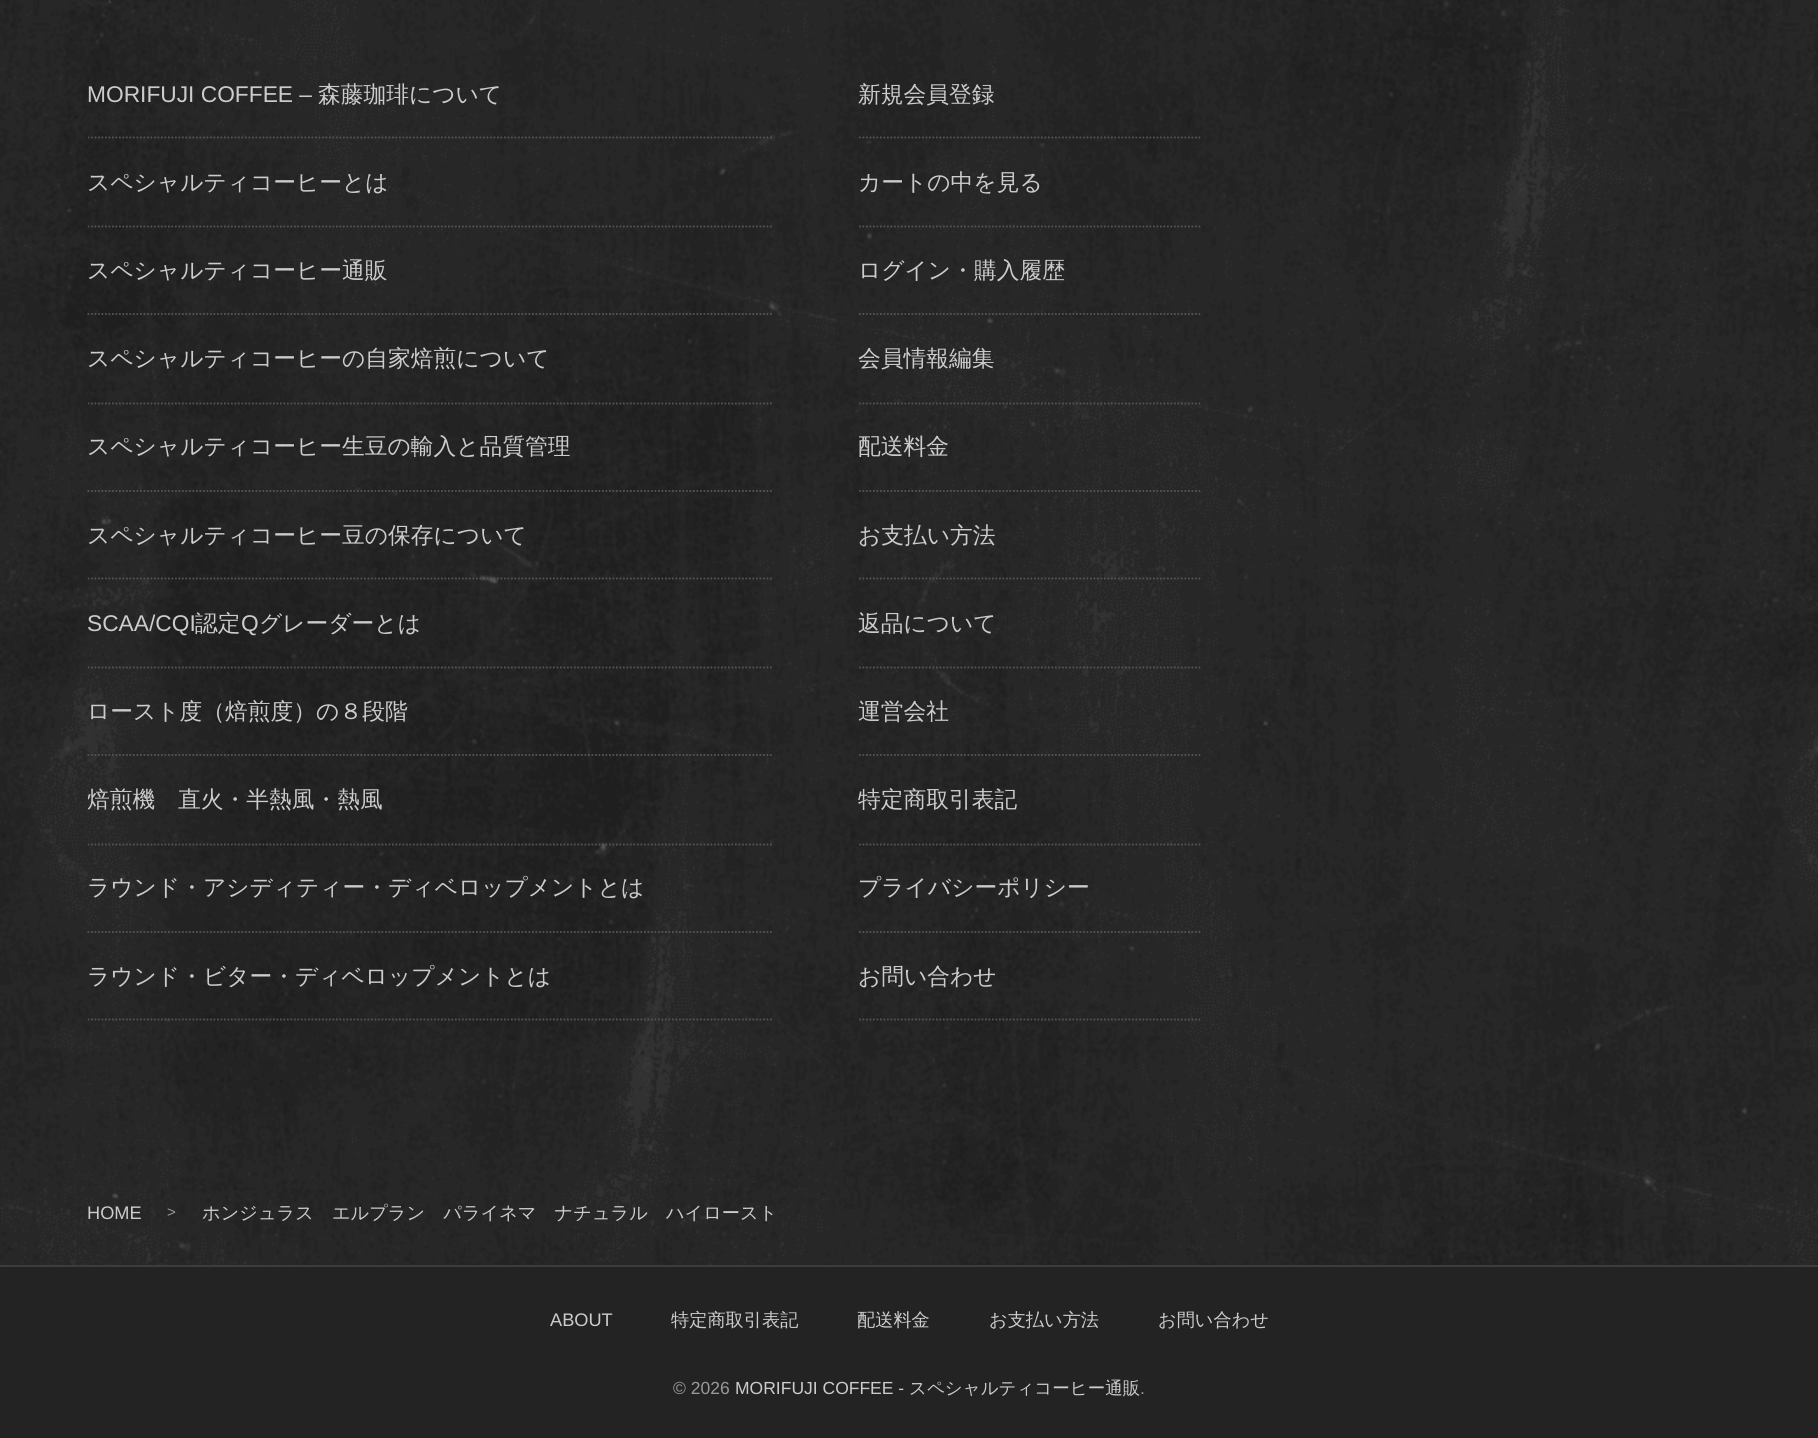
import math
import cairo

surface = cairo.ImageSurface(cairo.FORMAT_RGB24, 1818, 1438)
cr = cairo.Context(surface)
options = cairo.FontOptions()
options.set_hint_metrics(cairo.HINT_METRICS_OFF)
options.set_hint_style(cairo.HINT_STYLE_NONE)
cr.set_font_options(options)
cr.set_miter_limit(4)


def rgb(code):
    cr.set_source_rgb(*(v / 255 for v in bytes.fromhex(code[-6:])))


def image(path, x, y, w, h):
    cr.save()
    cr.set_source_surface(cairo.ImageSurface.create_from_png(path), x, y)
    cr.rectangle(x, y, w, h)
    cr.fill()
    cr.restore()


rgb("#ffffff")
cr.paint()
image("img/1.png", 0, 0, 1818, 1265)
cr.save()
cr.rectangle(88, 0, 1645, 1195)
cr.clip()
cr.new_path()
cr.move_to(87.5, 137.5)
cr.line_to(773.5, 137.5)
rgb("#555555")
cr.set_line_width(1.8)
cr.set_dash([1.75, 1.75])
cr.stroke()
cr.new_path()
cr.move_to(87.5, 226.5)
cr.line_to(773.5, 226.5)
cr.stroke()
cr.restore()
cr.new_path()
cr.move_to(87.5, 314)
cr.line_to(773.5, 314)
rgb("#555555")
cr.set_line_width(1.8)
cr.set_dash([1.75, 1.75])
cr.stroke()
cr.save()
cr.rectangle(88, 0, 1645, 1195)
cr.clip()
cr.new_path()
cr.move_to(87.5, 403.5)
cr.line_to(773.5, 403.5)
cr.stroke()
cr.restore()
cr.new_path()
cr.move_to(87.5, 491)
cr.line_to(773.5, 491)
cr.stroke()
cr.save()
cr.rectangle(88, 0, 1645, 1195)
cr.clip()
cr.new_path()
cr.move_to(87.5, 578.5)
cr.line_to(773.5, 578.5)
cr.stroke()
cr.new_path()
cr.move_to(87.5, 667.5)
cr.line_to(773.5, 667.5)
cr.stroke()
cr.restore()
cr.new_path()
cr.move_to(87.5, 755)
cr.line_to(773.5, 755)
cr.stroke()
cr.save()
cr.rectangle(88, 0, 1645, 1195)
cr.clip()
cr.new_path()
cr.move_to(87.5, 844.5)
cr.line_to(773.5, 844.5)
cr.stroke()
cr.restore()
cr.new_path()
cr.move_to(87.5, 932)
cr.line_to(773.5, 932)
cr.stroke()
cr.save()
cr.rectangle(88, 0, 1645, 1195)
cr.clip()
cr.new_path()
cr.move_to(87.5, 1019.5)
cr.line_to(773.5, 1019.5)
cr.stroke()
cr.restore()
cr.new_path()
cr.move_to(859, 137.5)
cr.line_to(1202, 137.5)
cr.stroke()
cr.new_path()
cr.move_to(859, 226.5)
cr.line_to(1202, 226.5)
cr.stroke()
cr.new_path()
cr.move_to(859, 314)
cr.line_to(1202, 314)
cr.stroke()
cr.new_path()
cr.move_to(859, 403.5)
cr.line_to(1202, 403.5)
cr.stroke()
cr.new_path()
cr.move_to(859, 491)
cr.line_to(1202, 491)
cr.stroke()
cr.new_path()
cr.move_to(859, 578.5)
cr.line_to(1202, 578.5)
cr.stroke()
cr.new_path()
cr.move_to(859, 667.5)
cr.line_to(1202, 667.5)
cr.stroke()
cr.new_path()
cr.move_to(859, 755)
cr.line_to(1202, 755)
cr.stroke()
cr.new_path()
cr.move_to(859, 844.5)
cr.line_to(1202, 844.5)
cr.stroke()
cr.new_path()
cr.move_to(859, 932)
cr.line_to(1202, 932)
cr.stroke()
cr.new_path()
cr.move_to(859, 1019.5)
cr.line_to(1202, 1019.5)
cr.stroke()
rgb("#232323")
cr.rectangle(0, 1267, 1818, 171)
cr.fill()
rgb("#3c3c3c")
cr.rectangle(0, 1265, 1818, 2)
cr.fill()
cr.select_font_face("Liberation Sans")
cr.set_font_size(22.75)
rgb("#cccccc")
cr.move_to(87, 102)
cr.show_text("MORIFUJI COFFEE –")
cr.select_font_face("WenQuanYi Zen Hei Medium")
for x, y, s in [
    (318, 102, "森藤珈琲について"),
    (87, 190, "スペシャルティコーヒーとは"),
    (87, 278, "スペシャルティコーヒー通販"),
    (87, 366, "スペシャルティコーヒーの自家焙煎について"),
    (87, 454, "スペシャルティコーヒー生豆の輸入と品質管理"),
    (87, 543, "スペシャルティコーヒー豆の保存について"),
]:
    cr.move_to(x, y)
    cr.show_text(s)
cr.select_font_face("Liberation Sans")
cr.move_to(87, 631)
cr.show_text("SCAA/CQI")
cr.select_font_face("WenQuanYi Zen Hei Medium")
cr.move_to(195, 631)
cr.show_text("認定")
cr.select_font_face("Liberation Sans")
cr.move_to(241, 631)
cr.show_text("Q")
cr.select_font_face("WenQuanYi Zen Hei Medium")
cr.move_to(259, 631)
cr.show_text("グレーダーとは")
cr.move_to(87, 719)
cr.show_text("ロースト度（焙煎度）の８段階")
cr.save()
cr.rectangle(88, 0, 1645, 1195)
cr.clip()
cr.move_to(87, 807)
cr.show_text("焙煎機　直火・半熱風・熱風")
cr.restore()
for x, y, s in [
    (87, 895, "ラウンド・アシディティー・ディベロップメントとは"),
    (87, 984, "ラウンド・ビター・ディベロップメントとは"),
    (858, 102, "新規会員登録"),
    (858, 190, "カートの中を見る"),
    (858, 278, "ログイン・購入履歴"),
    (858, 366, "会員情報編集"),
    (858, 454, "配送料金"),
    (858, 543, "お支払い方法"),
    (858, 631, "返品について"),
    (858, 719, "運営会社"),
    (858, 807, "特定商取引表記"),
    (858, 895, "プライバシーポリシー"),
    (858, 984, "お問い合わせ"),
]:
    cr.move_to(x, y)
    cr.show_text(s)
cr.select_font_face("Liberation Sans")
cr.set_font_size(18.2)
cr.move_to(87, 1219)
cr.show_text("HOME")
cr.set_font_size(15)
rgb("#999999")
cr.move_to(167, 1217)
cr.show_text(">")
cr.select_font_face("WenQuanYi Zen Hei Medium")
cr.set_font_size(18.2)
rgb("#cccccc")
cr.move_to(202, 1219)
cr.show_text("ホンジュラス　エルプラン　パライネマ　ナチュラル　ハイロースト")
cr.select_font_face("Liberation Sans")
cr.move_to(550, 1326)
cr.show_text("ABOUT")
cr.select_font_face("WenQuanYi Zen Hei Medium")
for x, y, s in [
    (671, 1326, "特定商取引表記"),
    (857, 1326, "配送料金"),
    (989, 1326, "お支払い方法"),
    (1158, 1326, "お問い合わせ"),
]:
    cr.move_to(x, y)
    cr.show_text(s)
cr.select_font_face("Liberation Sans")
cr.set_font_size(17.5)
rgb("#999999")
cr.move_to(673, 1394)
cr.show_text("© 2026")
rgb("#cccccc")
cr.move_to(735, 1394)
cr.show_text("MORIFUJI COFFEE -")
cr.select_font_face("WenQuanYi Zen Hei Medium")
cr.move_to(909, 1394)
cr.show_text("スペシャルティコーヒー通販")
cr.select_font_face("Liberation Sans")
rgb("#999999")
cr.move_to(1140, 1394)
cr.show_text(".")
surface.write_to_png("page.png")
